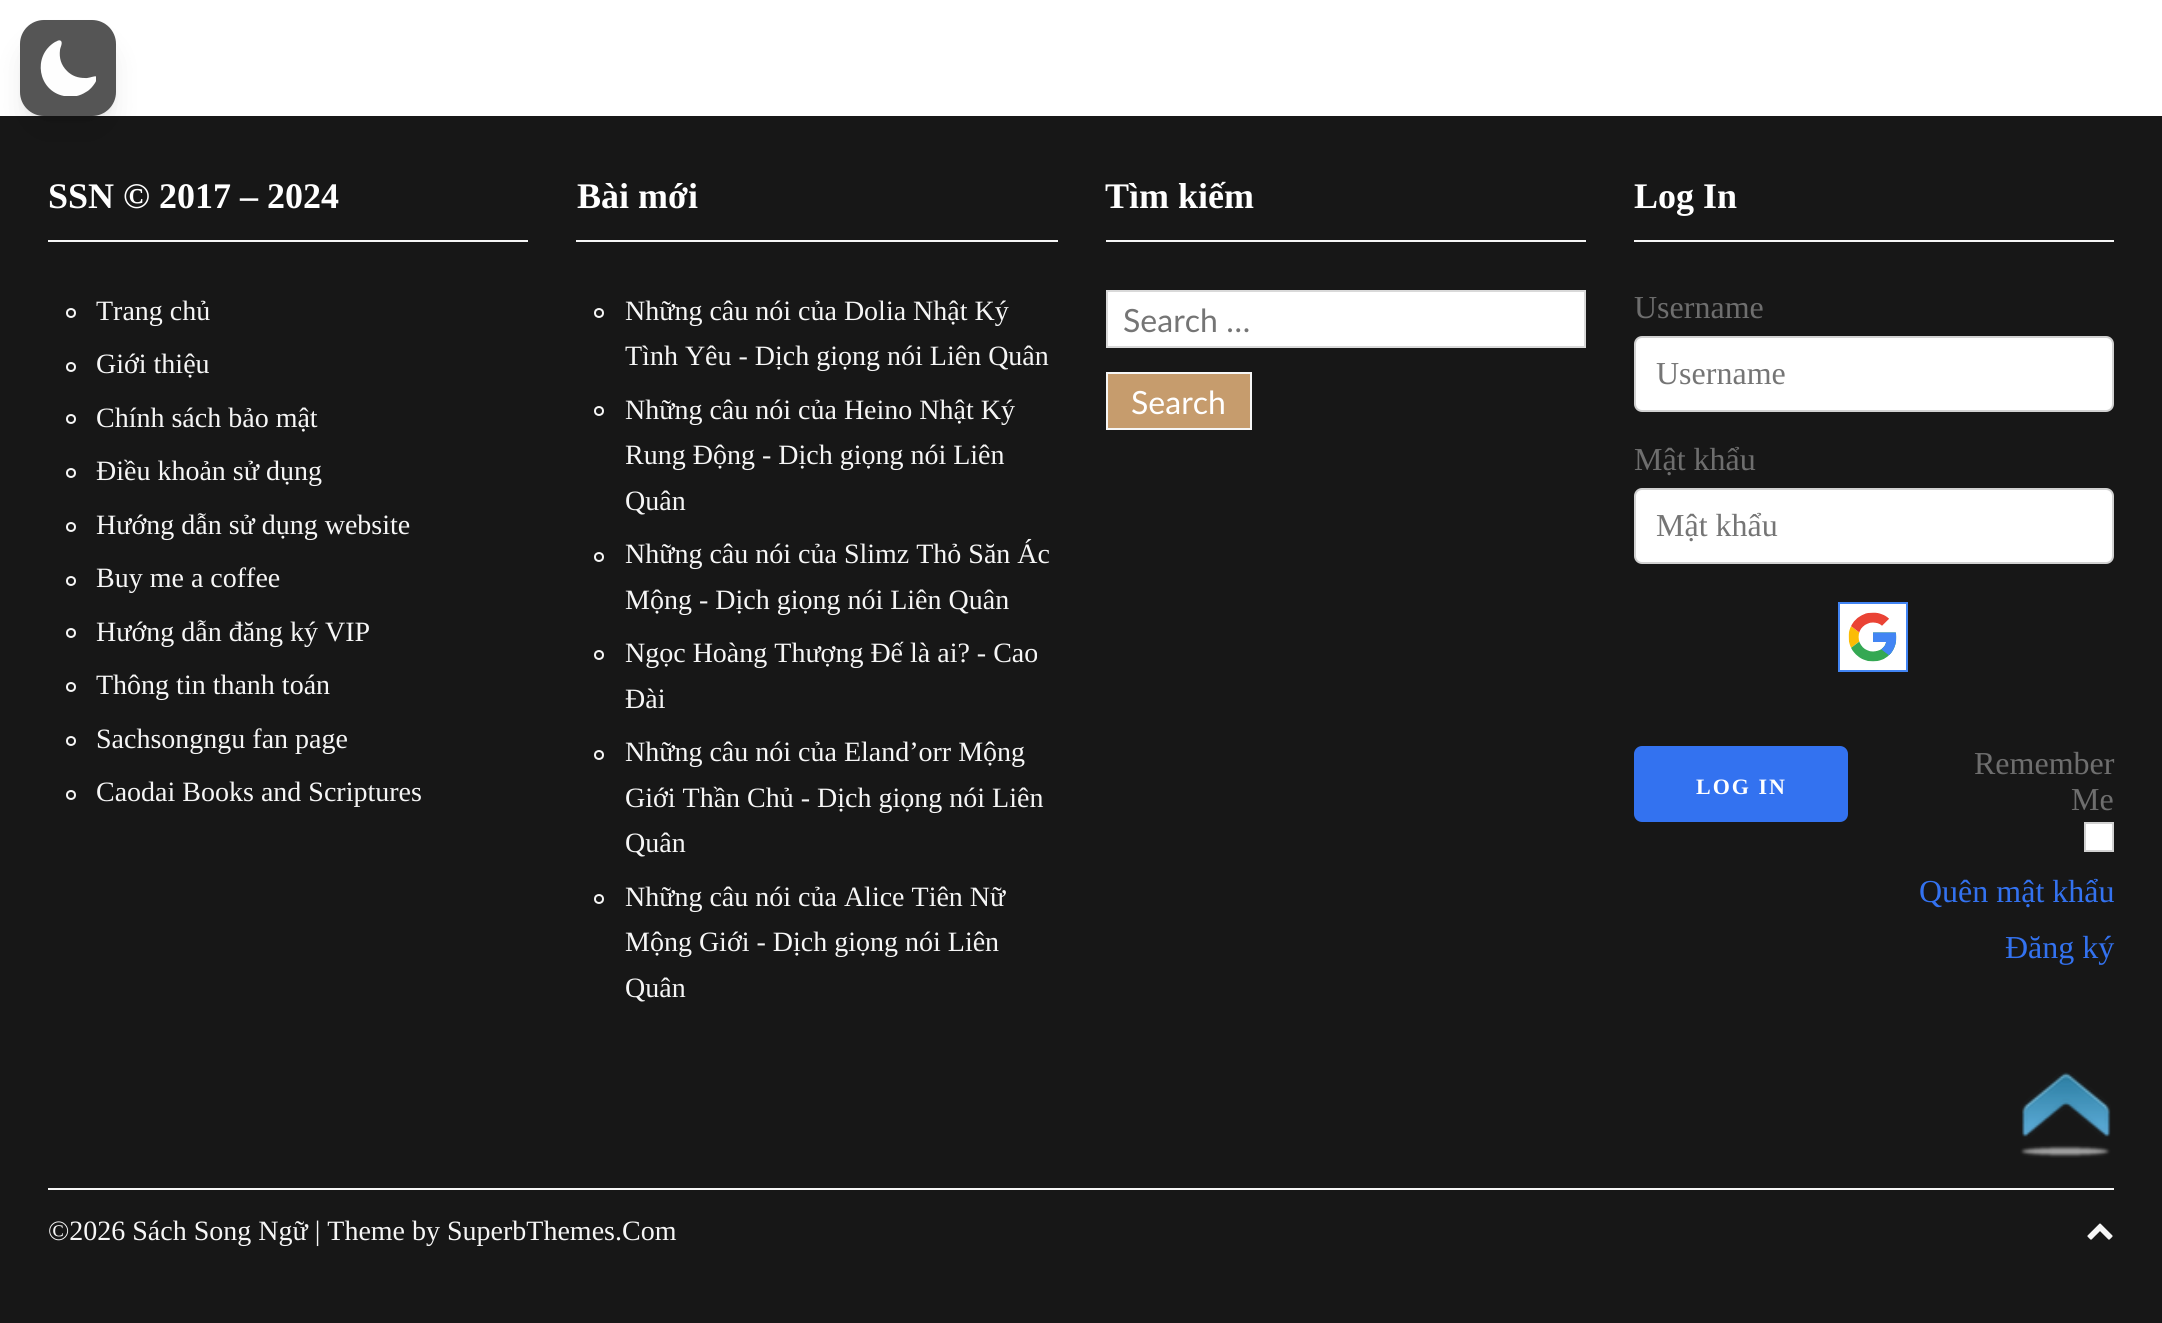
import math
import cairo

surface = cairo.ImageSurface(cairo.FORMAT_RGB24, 2162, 1323)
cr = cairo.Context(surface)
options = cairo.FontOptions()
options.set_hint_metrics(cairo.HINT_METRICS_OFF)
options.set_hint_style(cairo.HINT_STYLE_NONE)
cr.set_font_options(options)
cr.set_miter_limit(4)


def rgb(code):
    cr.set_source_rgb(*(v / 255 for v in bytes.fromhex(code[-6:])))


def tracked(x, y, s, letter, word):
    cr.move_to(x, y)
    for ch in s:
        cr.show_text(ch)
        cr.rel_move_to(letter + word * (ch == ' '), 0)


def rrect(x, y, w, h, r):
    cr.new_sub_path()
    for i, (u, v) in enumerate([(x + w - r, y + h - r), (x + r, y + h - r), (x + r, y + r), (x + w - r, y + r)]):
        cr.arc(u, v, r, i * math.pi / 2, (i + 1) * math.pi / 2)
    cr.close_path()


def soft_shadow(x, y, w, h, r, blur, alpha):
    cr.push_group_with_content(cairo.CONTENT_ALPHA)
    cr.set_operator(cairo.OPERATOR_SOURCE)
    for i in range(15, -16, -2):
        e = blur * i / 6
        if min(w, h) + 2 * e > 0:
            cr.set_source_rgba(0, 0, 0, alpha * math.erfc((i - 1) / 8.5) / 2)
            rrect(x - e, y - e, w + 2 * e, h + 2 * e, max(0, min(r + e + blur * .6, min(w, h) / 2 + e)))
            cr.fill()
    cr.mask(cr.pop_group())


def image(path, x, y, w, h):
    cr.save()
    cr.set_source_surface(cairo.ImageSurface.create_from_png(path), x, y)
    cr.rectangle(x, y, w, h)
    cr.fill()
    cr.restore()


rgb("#ffffff")
cr.paint()
rgb("#171717")
cr.rectangle(0, 116, 2162, 1207)
cr.fill()
rgb("#000000")
soft_shadow(28, 36, 80, 80, 16, 6, 0.1)
soft_shadow(26, 46, 84, 84, 18, 15, 0.1)
rgb("#555555")
rrect(20, 20, 96, 96, 24)
cr.fill()
cr.save()
cr.rectangle(40, 40, 56, 56)
cr.clip()
rgb("#fefefe")
cr.set_fill_rule(cairo.FILL_RULE_EVEN_ODD)
cr.new_path()
cr.move_to(61, 41)
cr.curve_to(63, 43, 60, 48, 60, 50)
cr.curve_to(59, 58, 61, 65, 67, 71)
cr.curve_to(72, 76, 78, 78, 85, 78)
cr.curve_to(90, 79, 102, 71, 95, 83)
cr.curve_to(93, 86, 90, 90, 86, 92)
cr.curve_to(80, 96, 72, 98, 64, 96)
cr.curve_to(38, 91, 32, 56, 55, 42)
cr.curve_to(56, 42, 59, 39, 61, 41)
cr.close_path()
cr.fill()
cr.restore()
rgb("#f6f6f6")
cr.rectangle(48, 1188, 2066, 2)
cr.fill()
cr.rectangle(48, 240, 480, 2)
cr.fill()
cr.arc(71, 313, 4, 0, 2 * math.pi)
cr.stroke()
cr.arc(71, 367, 4, 0, 2 * math.pi)
cr.stroke()
cr.arc(71, 419, 4, 0, 2 * math.pi)
cr.stroke()
cr.arc(71, 473, 4, 0, 2 * math.pi)
cr.stroke()
cr.arc(71, 527, 4, 0, 2 * math.pi)
cr.stroke()
cr.arc(71, 581, 4, 0, 2 * math.pi)
cr.stroke()
cr.arc(71, 633, 4, 0, 2 * math.pi)
cr.stroke()
cr.arc(71, 687, 4, 0, 2 * math.pi)
cr.stroke()
cr.arc(71, 741, 4, 0, 2 * math.pi)
cr.stroke()
cr.arc(71, 795, 4, 0, 2 * math.pi)
cr.stroke()
cr.rectangle(576, 240, 482, 2)
cr.fill()
cr.arc(599, 313, 4, 0, 2 * math.pi)
cr.stroke()
cr.arc(599, 411, 4, 0, 2 * math.pi)
cr.stroke()
cr.arc(599, 557, 4, 0, 2 * math.pi)
cr.stroke()
cr.arc(599, 655, 4, 0, 2 * math.pi)
cr.stroke()
cr.arc(599, 755, 4, 0, 2 * math.pi)
cr.stroke()
cr.arc(599, 899, 4, 0, 2 * math.pi)
cr.stroke()
cr.rectangle(1106, 240, 480, 2)
cr.fill()
rgb("#ffffff")
cr.rectangle(1107, 291, 478, 56)
cr.fill_preserve()
rgb("#d9d9d9")
cr.stroke()
rgb("#c69c6d")
cr.rectangle(1107, 373, 144, 56)
cr.fill_preserve()
rgb("#f6f6f6")
cr.stroke()
cr.rectangle(1634, 240, 480, 2)
cr.fill()
rgb("#ffffff")
rrect(1635, 337, 478, 74, 7)
cr.fill_preserve()
rgb("#d1d1d1")
cr.stroke()
rgb("#ffffff")
rrect(1635, 489, 478, 74, 7)
cr.fill_preserve()
rgb("#d1d1d1")
cr.stroke()
rgb("#ffffff")
cr.rectangle(1839, 603, 68, 68)
cr.fill_preserve()
rgb("#4184f3")
cr.stroke()
image("img/1.png", 1848, 612, 49, 50)
rgb("#3372f0")
rrect(1635, 747, 212, 74, 7)
cr.fill_preserve()
cr.stroke()
rgb("#ffffff")
cr.rectangle(2085, 823, 28, 28)
cr.fill_preserve()
rgb("#d1d1d1")
cr.stroke()
image("img/2.png", 2087, 1223, 26, 17)
image("img/3.png", 2020, 1072, 91, 86)
cr.select_font_face("Liberation Serif", cairo.FONT_SLANT_NORMAL, cairo.FONT_WEIGHT_BOLD)
cr.set_font_size(36)
rgb("#ffffff")
cr.move_to(48, 208)
cr.show_text("SSN © 2017 – 2024")
cr.select_font_face("Liberation Serif")
cr.set_font_size(28)
rgb("#f6f6f6")
for x, y, s in [
    (96, 320, "Trang chủ"),
    (96, 373, "Giới thiệu"),
    (96, 427, "Chính sách bảo mật"),
    (96, 480, "Điều khoản sử dụng"),
    (96, 534, "Hướng dẫn sử dụng website"),
    (96, 587, "Buy me a coffee"),
    (96, 641, "Hướng dẫn đăng ký VIP"),
    (96, 694, "Thông tin thanh toán"),
    (96, 748, "Sachsongngu fan page"),
    (96, 801, "Caodai Books and Scriptures"),
]:
    cr.move_to(x, y)
    cr.show_text(s)
cr.select_font_face("Liberation Serif", cairo.FONT_SLANT_NORMAL, cairo.FONT_WEIGHT_BOLD)
cr.set_font_size(36)
rgb("#ffffff")
cr.move_to(577, 208)
cr.show_text("Bài mới")
cr.select_font_face("Liberation Serif")
cr.set_font_size(28)
rgb("#f6f6f6")
for x, y, s in [
    (625, 320, "Những câu nói của Dolia Nhật Ký"),
    (625, 365, "Tình Yêu - Dịch giọng nói Liên Quân"),
    (625, 419, "Những câu nói của Heino Nhật Ký"),
    (625, 464, "Rung Động - Dịch giọng nói Liên"),
    (625, 510, "Quân"),
    (625, 563, "Những câu nói của Slimz Thỏ Săn Ác"),
    (625, 609, "Mộng - Dịch giọng nói Liên Quân"),
    (625, 662, "Ngọc Hoàng Thượng Đế là ai? - Cao"),
    (625, 708, "Đài"),
    (625, 761, "Những câu nói của Eland’orr Mộng"),
    (625, 807, "Giới Thần Chủ - Dịch giọng nói Liên"),
    (625, 852, "Quân"),
    (625, 906, "Những câu nói của Alice Tiên Nữ"),
    (625, 951, "Mộng Giới - Dịch giọng nói Liên"),
    (625, 997, "Quân"),
]:
    cr.move_to(x, y)
    cr.show_text(s)
cr.select_font_face("Liberation Serif", cairo.FONT_SLANT_NORMAL, cairo.FONT_WEIGHT_BOLD)
cr.set_font_size(36)
rgb("#ffffff")
cr.move_to(1105, 208)
cr.show_text("Tìm kiếm")
cr.select_font_face("Lato")
cr.set_font_size(32)
rgb("#757575")
cr.move_to(1123, 332)
cr.show_text("Search …")
rgb("#ffffff")
cr.move_to(1131, 414)
cr.show_text("Search")
cr.select_font_face("Liberation Serif", cairo.FONT_SLANT_NORMAL, cairo.FONT_WEIGHT_BOLD)
cr.set_font_size(36)
cr.move_to(1634, 208)
cr.show_text("Log In")
cr.select_font_face("Liberation Serif")
cr.set_font_size(32)
rgb("#6e6e6e")
cr.move_to(1634, 318)
cr.show_text("Username")
rgb("#757575")
cr.move_to(1656, 384)
cr.show_text("Username")
rgb("#6e6e6e")
cr.move_to(1634, 470)
cr.show_text("Mật khẩu")
rgb("#757575")
cr.move_to(1656, 536)
cr.show_text("Mật khẩu")
cr.select_font_face("Liberation Serif", cairo.FONT_SLANT_NORMAL, cairo.FONT_WEIGHT_BOLD)
cr.set_font_size(22)
rgb("#ffffff")
tracked(1696, 794, "LOG IN", 2, 0)
cr.select_font_face("Liberation Serif")
cr.set_font_size(32)
rgb("#6e6e6e")
cr.move_to(1974, 774)
cr.show_text("Remember")
cr.move_to(2071, 810)
cr.show_text("Me")
rgb("#3372f0")
cr.move_to(1919, 902)
cr.show_text("Quên mật khẩu")
cr.move_to(2005, 958)
cr.show_text("Đăng ký")
cr.set_font_size(28)
rgb("#f6f6f6")
cr.move_to(48, 1240)
cr.show_text("©2026 Sách Song Ngữ | Theme by SuperbThemes.Com")
surface.write_to_png("page.png")
